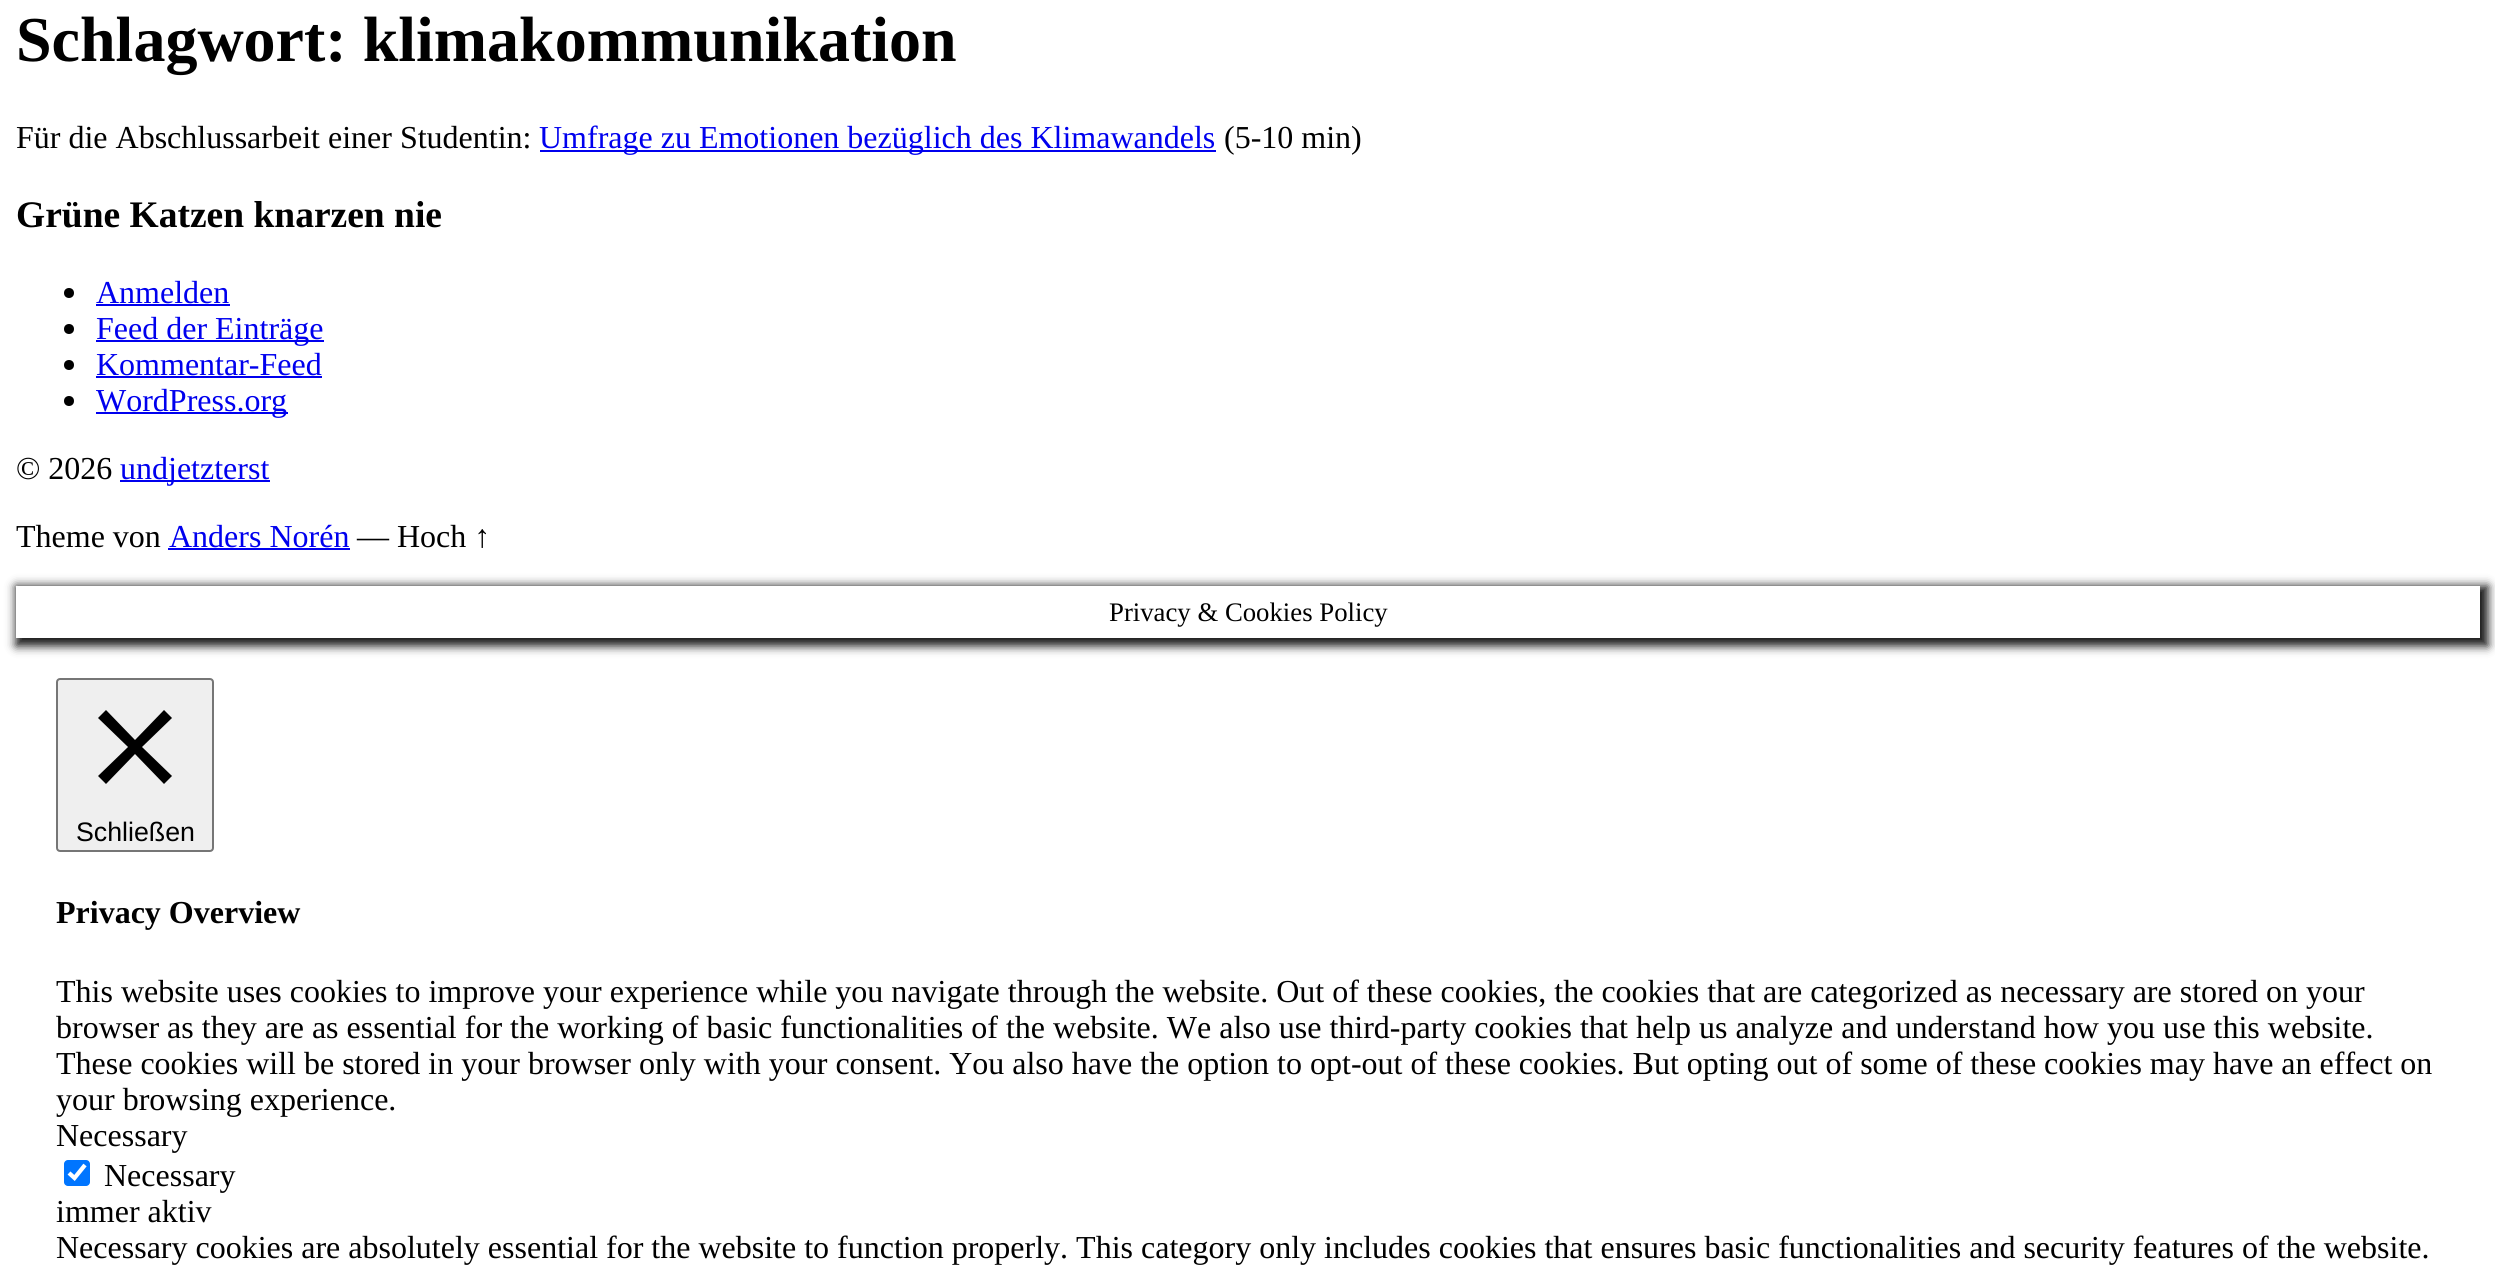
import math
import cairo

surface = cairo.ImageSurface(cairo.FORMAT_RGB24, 2495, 1274)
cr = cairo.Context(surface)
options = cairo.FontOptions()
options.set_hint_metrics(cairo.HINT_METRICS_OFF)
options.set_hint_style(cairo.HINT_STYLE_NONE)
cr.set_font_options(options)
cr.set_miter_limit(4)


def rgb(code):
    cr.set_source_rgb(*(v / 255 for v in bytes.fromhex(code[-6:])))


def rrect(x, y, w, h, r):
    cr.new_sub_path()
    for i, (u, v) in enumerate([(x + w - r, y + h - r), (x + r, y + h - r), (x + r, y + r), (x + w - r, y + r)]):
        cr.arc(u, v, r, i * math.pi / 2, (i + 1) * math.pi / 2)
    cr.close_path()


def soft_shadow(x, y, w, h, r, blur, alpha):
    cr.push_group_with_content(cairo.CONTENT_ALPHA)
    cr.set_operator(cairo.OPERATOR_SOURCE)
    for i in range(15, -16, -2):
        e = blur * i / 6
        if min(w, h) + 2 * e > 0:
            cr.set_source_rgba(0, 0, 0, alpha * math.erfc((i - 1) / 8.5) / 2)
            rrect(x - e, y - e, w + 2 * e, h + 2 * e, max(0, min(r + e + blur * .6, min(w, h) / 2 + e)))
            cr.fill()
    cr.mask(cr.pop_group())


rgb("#ffffff")
cr.paint()
rgb("#0000ee")
cr.rectangle(540, 150, 676, 2)
cr.fill()
rgb("#000000")
cr.arc(69, 293, 5, 0, 2 * math.pi)
cr.fill()
rgb("#0000ee")
cr.rectangle(96, 304, 134, 2)
cr.fill()
rgb("#000000")
cr.arc(69, 329, 5, 0, 2 * math.pi)
cr.fill()
rgb("#0000ee")
cr.rectangle(96, 340, 228, 2)
cr.fill()
rgb("#000000")
cr.arc(69, 365, 5, 0, 2 * math.pi)
cr.fill()
rgb("#0000ee")
cr.rectangle(96, 376, 226, 2)
cr.fill()
rgb("#000000")
cr.arc(69, 401, 5, 0, 2 * math.pi)
cr.fill()
for x, y, w, h, color in [
    (96, 412, 192, 2, "#0000ee"),
    (120, 480, 150, 2, "#0000ee"),
    (168, 548, 182, 2, "#0000ee"),
]:
    rgb(color)
    cr.rectangle(x, y, w, h)
    cr.fill()
cr.save()
cr.set_fill_rule(cairo.FILL_RULE_EVEN_ODD)
cr.new_path()
cr.move_to(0, 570)
cr.line_to(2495, 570)
cr.line_to(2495, 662)
cr.line_to(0, 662)
cr.close_path()
cr.move_to(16, 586)
cr.line_to(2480, 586)
cr.line_to(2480, 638)
cr.line_to(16, 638)
cr.close_path()
cr.clip()
rgb("#161616")
soft_shadow(16, 586, 2472, 60, 0, 5, 1)
cr.restore()
rgb("#efefef")
rrect(57, 679, 156, 172, 3)
cr.fill_preserve()
rgb("#767676")
cr.stroke()
rgb("#000000")
cr.new_path()
cr.move_to(172, 718)
cr.line_to(164, 710)
cr.line_to(135, 740)
cr.line_to(106, 710)
cr.line_to(98, 718)
cr.line_to(128, 747)
cr.line_to(98, 776)
cr.line_to(106, 784)
cr.line_to(135, 754)
cr.line_to(164, 784)
cr.line_to(172, 776)
cr.line_to(142, 747)
cr.close_path()
cr.fill()
rgb("#0075ff")
rrect(64, 1160, 26, 26, 4)
cr.fill()
cr.new_path()
cr.move_to(69, 1173)
cr.line_to(74.5, 1178)
cr.line_to(85, 1165)
rgb("#ffffff")
cr.set_line_width(4.2)
cr.stroke()
cr.select_font_face("Liberation Serif", cairo.FONT_SLANT_NORMAL, cairo.FONT_WEIGHT_BOLD)
cr.set_font_size(64)
rgb("#000000")
cr.move_to(16, 61)
cr.show_text("Schlagwort: klimakommunikation")
cr.select_font_face("Liberation Serif")
cr.set_font_size(32)
cr.move_to(16, 148)
cr.show_text("Für die Abschlussarbeit einer Studentin:")
rgb("#0000ee")
cr.move_to(539, 148)
cr.show_text("Umfrage zu Emotionen bezüglich des Klimawandels")
rgb("#000000")
cr.move_to(1224, 148)
cr.show_text("(5-10 min)")
cr.select_font_face("Liberation Serif", cairo.FONT_SLANT_NORMAL, cairo.FONT_WEIGHT_BOLD)
cr.set_font_size(37.5)
cr.move_to(16, 227)
cr.show_text("Grüne Katzen knarzen nie")
cr.select_font_face("Liberation Serif")
cr.set_font_size(32)
rgb("#0000ee")
for x, y, s in [
    (96, 303, "Anmelden"),
    (96, 339, "Feed der Einträge"),
    (96, 375, "Kommentar-Feed"),
    (96, 411, "WordPress.org"),
]:
    cr.move_to(x, y)
    cr.show_text(s)
rgb("#000000")
cr.move_to(16, 479)
cr.show_text("© 2026")
rgb("#0000ee")
cr.move_to(120, 479)
cr.show_text("undjetzterst")
rgb("#000000")
cr.move_to(16, 547)
cr.show_text("Theme von")
rgb("#0000ee")
cr.move_to(169, 547)
cr.show_text("Anders Norén")
rgb("#000000")
cr.move_to(357, 547)
cr.show_text("— Hoch ↑")
cr.set_font_size(26.75)
cr.move_to(1109, 621)
cr.show_text("Privacy & Cookies Policy")
cr.select_font_face("Liberation Sans")
cr.move_to(76, 841)
cr.show_text("Schließen")
cr.select_font_face("Liberation Serif", cairo.FONT_SLANT_NORMAL, cairo.FONT_WEIGHT_BOLD)
cr.set_font_size(32)
cr.move_to(56, 923)
cr.show_text("Privacy Overview")
cr.select_font_face("Liberation Serif")
for x, y, s in [
    (56, 1002, "This website uses cookies to improve your experience while you navigate through the website. Out of these cookies, the cookies that are categorized as necessary are stored on your"),
    (56, 1038, "browser as they are as essential for the working of basic functionalities of the website. We also use third-party cookies that help us analyze and understand how you use this website."),
    (56, 1074, "These cookies will be stored in your browser only with your consent. You also have the option to opt-out of these cookies. But opting out of some of these cookies may have an effect on"),
    (56, 1110, "your browsing experience."),
    (56, 1146, "Necessary"),
    (104, 1186, "Necessary"),
    (56, 1222, "immer aktiv"),
    (56, 1258, "Necessary cookies are absolutely essential for the website to function properly. This category only includes cookies that ensures basic functionalities and security features of the website."),
]:
    cr.move_to(x, y)
    cr.show_text(s)
surface.write_to_png("page.png")
